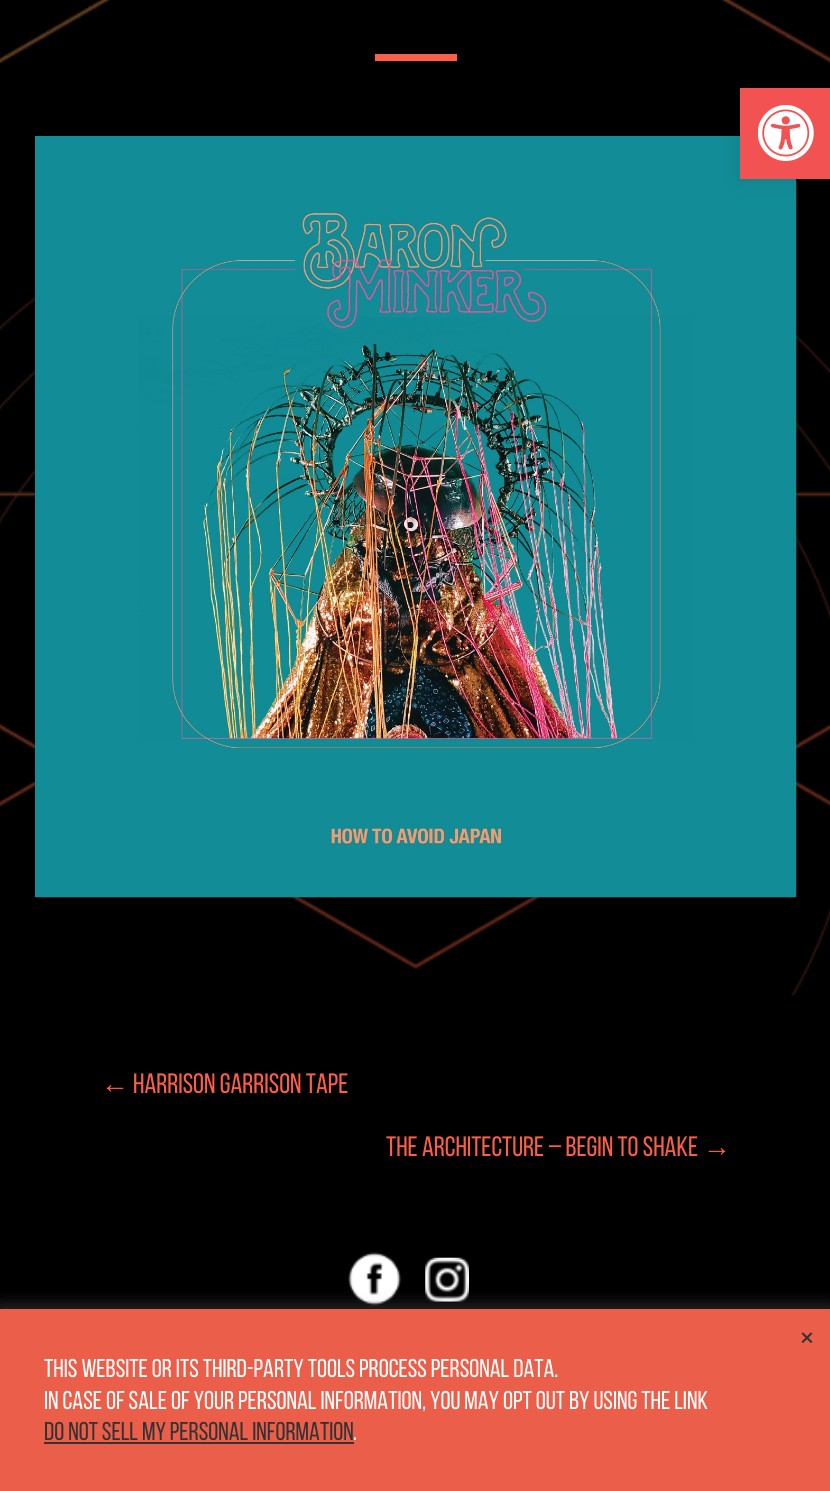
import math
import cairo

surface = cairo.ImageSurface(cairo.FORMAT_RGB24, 830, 1491)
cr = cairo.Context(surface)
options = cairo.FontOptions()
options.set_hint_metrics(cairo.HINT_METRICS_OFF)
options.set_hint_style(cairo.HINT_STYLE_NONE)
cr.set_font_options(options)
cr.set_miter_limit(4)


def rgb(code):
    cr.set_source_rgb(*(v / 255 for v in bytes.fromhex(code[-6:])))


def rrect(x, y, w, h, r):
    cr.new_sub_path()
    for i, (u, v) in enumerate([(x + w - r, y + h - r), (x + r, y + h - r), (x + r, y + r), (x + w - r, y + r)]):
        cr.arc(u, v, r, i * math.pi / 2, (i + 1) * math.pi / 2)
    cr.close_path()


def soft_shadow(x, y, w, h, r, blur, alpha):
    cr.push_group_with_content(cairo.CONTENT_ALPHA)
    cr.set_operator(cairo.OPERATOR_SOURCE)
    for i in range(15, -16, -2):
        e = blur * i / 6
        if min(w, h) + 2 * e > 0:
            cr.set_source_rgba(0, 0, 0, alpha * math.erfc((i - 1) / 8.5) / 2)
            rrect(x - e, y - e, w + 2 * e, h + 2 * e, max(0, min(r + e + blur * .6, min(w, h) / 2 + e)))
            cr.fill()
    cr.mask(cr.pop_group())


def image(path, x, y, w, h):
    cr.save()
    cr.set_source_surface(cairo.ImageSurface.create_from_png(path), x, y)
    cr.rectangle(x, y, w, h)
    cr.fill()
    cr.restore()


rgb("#000000")
cr.paint()
image("img/2.png", 0, 0, 830, 996)
image("img/3.png", 35, 136, 762, 762)
soft_shadow(740, 88, 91, 91, 0, 9, 0.1)
rgb("#f25252")
cr.rectangle(740, 88, 90, 91)
cr.fill()
image("img/1.png", 758, 105, 56, 56)
rgb("#fb5f4a")
cr.rectangle(375, 54, 82, 7)
cr.fill()
image("img/4.png", 348, 1252, 54, 54)
image("img/5.png", 425, 1257, 44, 45)
rgb("#acabab")
soft_shadow(0, 1307, 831, 182, 0, 9, 0.3)
rgb("#eb5f4a")
cr.rectangle(0, 1309, 830, 182)
cr.fill()
rgb("#333333")
cr.rectangle(44, 1442, 310, 2)
cr.fill()
cr.select_font_face("Liberation Sans")
cr.set_font_size(28)
rgb("#fb5f4a")
cr.move_to(101, 1093)
cr.show_text("←")
cr.select_font_face("Bebas Neue")
cr.move_to(133, 1093)
cr.show_text("Harrison Garrison Tape")
cr.move_to(386, 1156)
cr.show_text("The Architecture – Begin to Shake")
cr.select_font_face("Liberation Sans")
cr.move_to(703, 1156)
cr.show_text("→")
cr.select_font_face("Bebas Neue")
cr.set_font_size(38)
rgb("#333333")
cr.move_to(800, 1351)
cr.show_text("×")
cr.set_font_size(25.7)
rgb("#ffffff")
cr.move_to(44, 1377)
cr.show_text("This website or its third-party tools process personal data.")
cr.move_to(44, 1409)
cr.show_text("In case of sale of your personal information, you may opt out by using the link")
rgb("#333333")
cr.move_to(44, 1440)
cr.show_text("Do not sell my personal information")
rgb("#ffffff")
cr.move_to(353, 1440)
cr.show_text(".")
surface.write_to_png("page.png")
